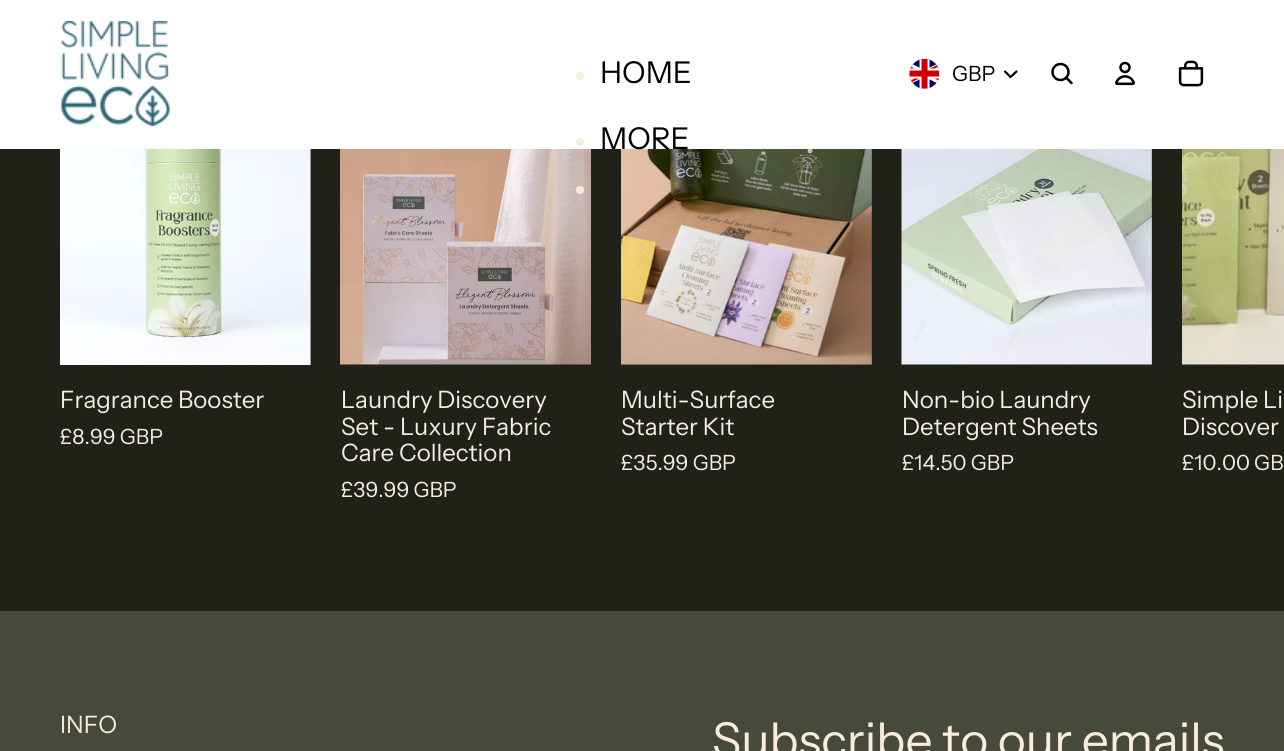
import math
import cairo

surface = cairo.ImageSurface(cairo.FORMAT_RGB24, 1284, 751)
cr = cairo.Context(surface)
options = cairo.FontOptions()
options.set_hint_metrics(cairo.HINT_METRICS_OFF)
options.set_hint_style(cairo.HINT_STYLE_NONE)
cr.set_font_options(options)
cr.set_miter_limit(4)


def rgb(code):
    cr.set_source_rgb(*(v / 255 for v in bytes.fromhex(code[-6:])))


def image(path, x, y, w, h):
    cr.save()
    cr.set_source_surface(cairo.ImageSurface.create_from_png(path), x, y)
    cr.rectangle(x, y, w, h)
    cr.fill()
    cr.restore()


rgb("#202219")
cr.paint()
rgb("#ffffff")
cr.rectangle(0, 0, 1284, 149)
cr.fill()
image("img/1.png", 61, 21, 109, 105)
rgb("#f6eddd")
cr.arc(580, 76, 4, 0, 2 * math.pi)
cr.fill()
cr.arc(580, 142, 4, 0, 2 * math.pi)
cr.fill()
image("img/6.png", 340, 149, 251, 216)
cr.arc(580, 190, 4, 0, 2 * math.pi)
cr.fill()
image("img/2.png", 909, 59, 30, 30)
cr.new_path()
cr.move_to(1016.5, 71.5)
cr.line_to(1010.5, 77)
cr.line_to(1005, 71.5)
rgb("#000000")
cr.set_line_width(2.2)
cr.set_line_cap(cairo.LINE_CAP_ROUND)
cr.set_line_join(cairo.LINE_JOIN_ROUND)
cr.stroke()
cr.arc(1060.5, 72, 8, 0, 2 * math.pi)
cr.set_line_width(2.5)
cr.set_line_cap(cairo.LINE_CAP_BUTT)
cr.set_line_join(cairo.LINE_JOIN_MITER)
cr.stroke()
cr.new_path()
cr.move_to(1066, 77.5)
cr.line_to(1071.5, 83)
cr.set_line_cap(cairo.LINE_CAP_ROUND)
cr.set_line_join(cairo.LINE_JOIN_ROUND)
cr.stroke()
image("img/3.png", 1115, 61, 20, 25)
image("img/4.png", 1178, 60, 26, 27)
image("img/5.png", 60, 149, 251, 216)
image("img/7.png", 621, 149, 251, 216)
image("img/8.png", 901, 149, 251, 216)
image("img/9.png", 1182, 149, 102, 216)
rgb("#46493c")
cr.rectangle(0, 611, 1284, 140)
cr.fill()
cr.select_font_face("Instrument Sans")
cr.set_font_size(30)
rgb("#000000")
cr.move_to(600, 83)
cr.show_text("HOME")
cr.move_to(600, 149)
cr.show_text("MORE")
cr.set_font_size(21)
cr.move_to(952, 81)
cr.show_text("GBP")
cr.set_font_size(24)
rgb("#f6eddd")
cr.move_to(60, 408)
cr.show_text("Fragrance Booster")
cr.set_font_size(21)
cr.move_to(60, 444)
cr.show_text("£8.99 GBP")
cr.set_font_size(24)
for x, y, s in [
    (341, 408, "Laundry Discovery"),
    (341, 435, "Set - Luxury Fabric"),
    (341, 461, "Care Collection"),
]:
    cr.move_to(x, y)
    cr.show_text(s)
cr.set_font_size(21)
cr.move_to(341, 497)
cr.show_text("£39.99 GBP")
cr.set_font_size(24)
cr.move_to(621, 408)
cr.show_text("Multi-Surface")
cr.move_to(621, 435)
cr.show_text("Starter Kit")
cr.set_font_size(21)
cr.move_to(621, 470)
cr.show_text("£35.99 GBP")
cr.set_font_size(24)
cr.move_to(902, 408)
cr.show_text("Non-bio Laundry")
cr.move_to(902, 435)
cr.show_text("Detergent Sheets")
cr.set_font_size(21)
cr.move_to(902, 470)
cr.show_text("£14.50 GBP")
cr.set_font_size(24)
cr.move_to(1182, 408)
cr.show_text("Simple Li")
cr.move_to(1182, 435)
cr.show_text("Discover")
cr.set_font_size(21)
cr.move_to(1182, 470)
cr.show_text("£10.00 GB")
cr.set_font_size(24)
cr.move_to(60, 733)
cr.show_text("INFO")
cr.set_font_size(48)
cr.move_to(712, 757)
cr.show_text("Subscribe to our emails")
surface.write_to_png("page.png")
